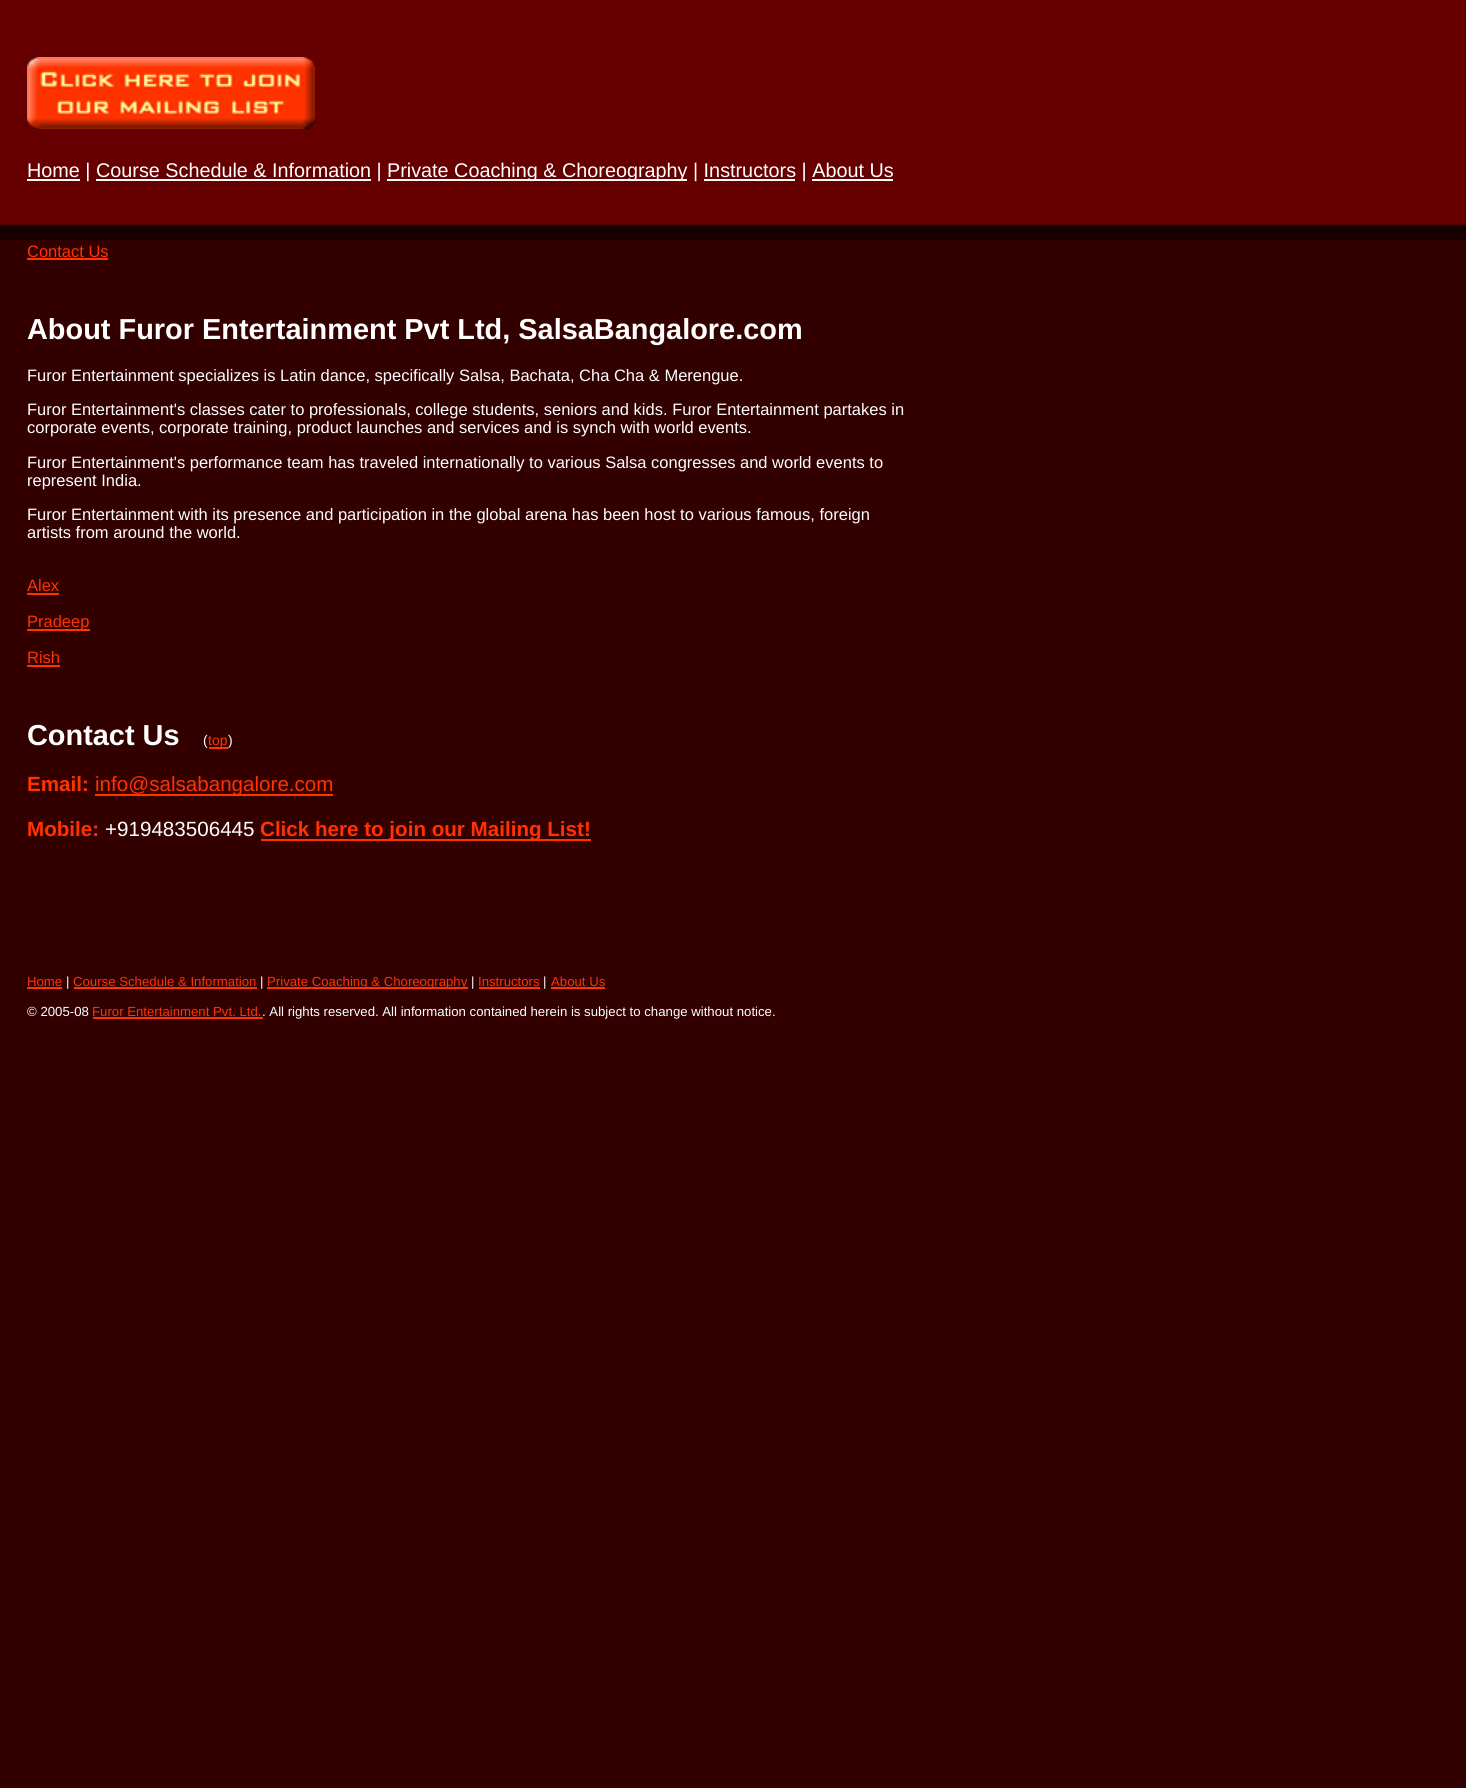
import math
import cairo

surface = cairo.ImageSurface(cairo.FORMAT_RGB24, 1466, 1788)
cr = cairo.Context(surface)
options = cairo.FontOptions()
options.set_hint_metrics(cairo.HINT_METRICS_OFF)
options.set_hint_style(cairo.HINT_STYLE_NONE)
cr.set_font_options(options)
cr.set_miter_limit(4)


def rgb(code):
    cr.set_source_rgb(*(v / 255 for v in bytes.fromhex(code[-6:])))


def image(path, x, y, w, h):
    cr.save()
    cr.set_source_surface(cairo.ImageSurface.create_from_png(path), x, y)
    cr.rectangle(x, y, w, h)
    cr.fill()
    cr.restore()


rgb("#330000")
cr.paint()
image("img/1.png", 0, 0, 1466, 240)
image("img/2.png", 27, 57, 288, 72)
for x, y, w, h, color in [
    (27, 179, 53, 2, "#ffffff"),
    (387, 179, 300, 2, "#ffffff"),
    (96, 179, 275, 2, "#ffffff"),
    (704, 179, 91, 2, "#ffffff"),
    (812, 179, 81, 2, "#ffffff"),
    (27, 258, 81, 2, "#ff3300"),
    (27, 593, 32, 2, "#ff3300"),
    (27, 629, 63, 2, "#ff3300"),
    (27, 665, 33, 2, "#ff3300"),
    (209, 747, 19, 2, "#ff3300"),
    (95, 794, 238, 2, "#ff3300"),
    (261, 839, 330, 2, "#ff3300"),
    (27, 987, 35, 2, "#ff3300"),
    (74, 987, 183, 2, "#ff3300"),
    (267, 987, 201, 2, "#ff3300"),
    (479, 987, 61, 2, "#ff3300"),
    (551, 987, 54, 2, "#ff3300"),
    (93, 1017, 170, 2, "#ff3300"),
]:
    rgb(color)
    cr.rectangle(x, y, w, h)
    cr.fill()
cr.select_font_face("Liberation Sans")
cr.set_font_size(19.8)
rgb("#ffffff")
cr.move_to(27, 177)
cr.show_text("Home | Course Schedule & Information |")
cr.move_to(387, 177)
cr.show_text("Private Coaching & Choreography | Instructors | About Us")
cr.set_font_size(16.5)
rgb("#ff3300")
cr.move_to(27, 257)
cr.show_text("Contact Us")
cr.select_font_face("Liberation Sans", cairo.FONT_SLANT_NORMAL, cairo.FONT_WEIGHT_BOLD)
cr.set_font_size(28.9)
rgb("#ffffff")
cr.move_to(27, 339)
cr.show_text("About Furor Entertainment Pvt Ltd, SalsaBangalore.com")
cr.select_font_face("Liberation Sans")
cr.set_font_size(16.5)
for x, y, s in [
    (27, 381, "Furor Entertainment specializes is Latin dance, specifically Salsa, Bachata, Cha Cha & Merengue."),
    (27, 415, "Furor Entertainment's classes cater to professionals, college students, seniors and kids. Furor Entertainment partakes in"),
    (27, 433, "corporate events, corporate training, product launches and services and is synch with world events."),
    (27, 468, "Furor Entertainment's performance team has traveled internationally to various Salsa congresses and world events to"),
    (27, 486, "represent India."),
    (27, 520, "Furor Entertainment with its presence and participation in the global arena has been host to various famous, foreign"),
    (27, 538, "artists from around the world."),
]:
    cr.move_to(x, y)
    cr.show_text(s)
rgb("#ff3300")
for x, y, s in [
    (27, 591, "Alex"),
    (27, 627, "Pradeep"),
    (27, 663, "Rish"),
]:
    cr.move_to(x, y)
    cr.show_text(s)
cr.select_font_face("Liberation Sans", cairo.FONT_SLANT_NORMAL, cairo.FONT_WEIGHT_BOLD)
cr.set_font_size(28.9)
rgb("#ffffff")
cr.move_to(27, 745)
cr.show_text("Contact Us")
cr.select_font_face("Liberation Sans")
cr.set_font_size(14)
cr.move_to(203, 745)
cr.show_text("(")
rgb("#ff3300")
cr.move_to(208, 745)
cr.show_text("top")
rgb("#ffffff")
cr.move_to(228, 745)
cr.show_text(")")
cr.select_font_face("Liberation Sans", cairo.FONT_SLANT_NORMAL, cairo.FONT_WEIGHT_BOLD)
cr.set_font_size(20.6)
rgb("#ff3300")
cr.move_to(27, 791)
cr.show_text("Email:")
cr.select_font_face("Liberation Sans")
cr.move_to(95, 791)
cr.show_text("info@salsabangalore.com")
cr.select_font_face("Liberation Sans", cairo.FONT_SLANT_NORMAL, cairo.FONT_WEIGHT_BOLD)
cr.move_to(27, 836)
cr.show_text("Mobile:")
cr.select_font_face("Liberation Sans")
rgb("#ffffff")
cr.move_to(105, 836)
cr.show_text("+919483506445")
cr.select_font_face("Liberation Sans", cairo.FONT_SLANT_NORMAL, cairo.FONT_WEIGHT_BOLD)
rgb("#ff3300")
cr.move_to(260, 836)
cr.show_text("Click here to join our Mailing List!")
cr.select_font_face("Liberation Sans")
cr.set_font_size(13.2)
cr.move_to(27, 986)
cr.show_text("Home")
rgb("#ffffff")
cr.move_to(66, 986)
cr.show_text("|")
rgb("#ff3300")
cr.move_to(73, 986)
cr.show_text("Course Schedule & Information")
rgb("#ffffff")
cr.move_to(260, 986)
cr.show_text("|")
rgb("#ff3300")
cr.move_to(267, 986)
cr.show_text("Private Coaching & Choreography")
rgb("#ffffff")
cr.move_to(471, 986)
cr.show_text("|")
rgb("#ff3300")
cr.move_to(478, 986)
cr.show_text("Instructors")
rgb("#ffffff")
cr.move_to(543, 986)
cr.show_text("|")
rgb("#ff3300")
cr.move_to(551, 986)
cr.show_text("About Us")
rgb("#ffffff")
cr.move_to(27, 1016)
cr.show_text("© 2005-08")
rgb("#ff3300")
cr.move_to(92, 1016)
cr.show_text("Furor Entertainment Pvt. Ltd.")
rgb("#ffffff")
cr.move_to(262, 1016)
cr.show_text(". All rights reserved. All information contained herein is subject to change without notice.")
surface.write_to_png("page.png")
